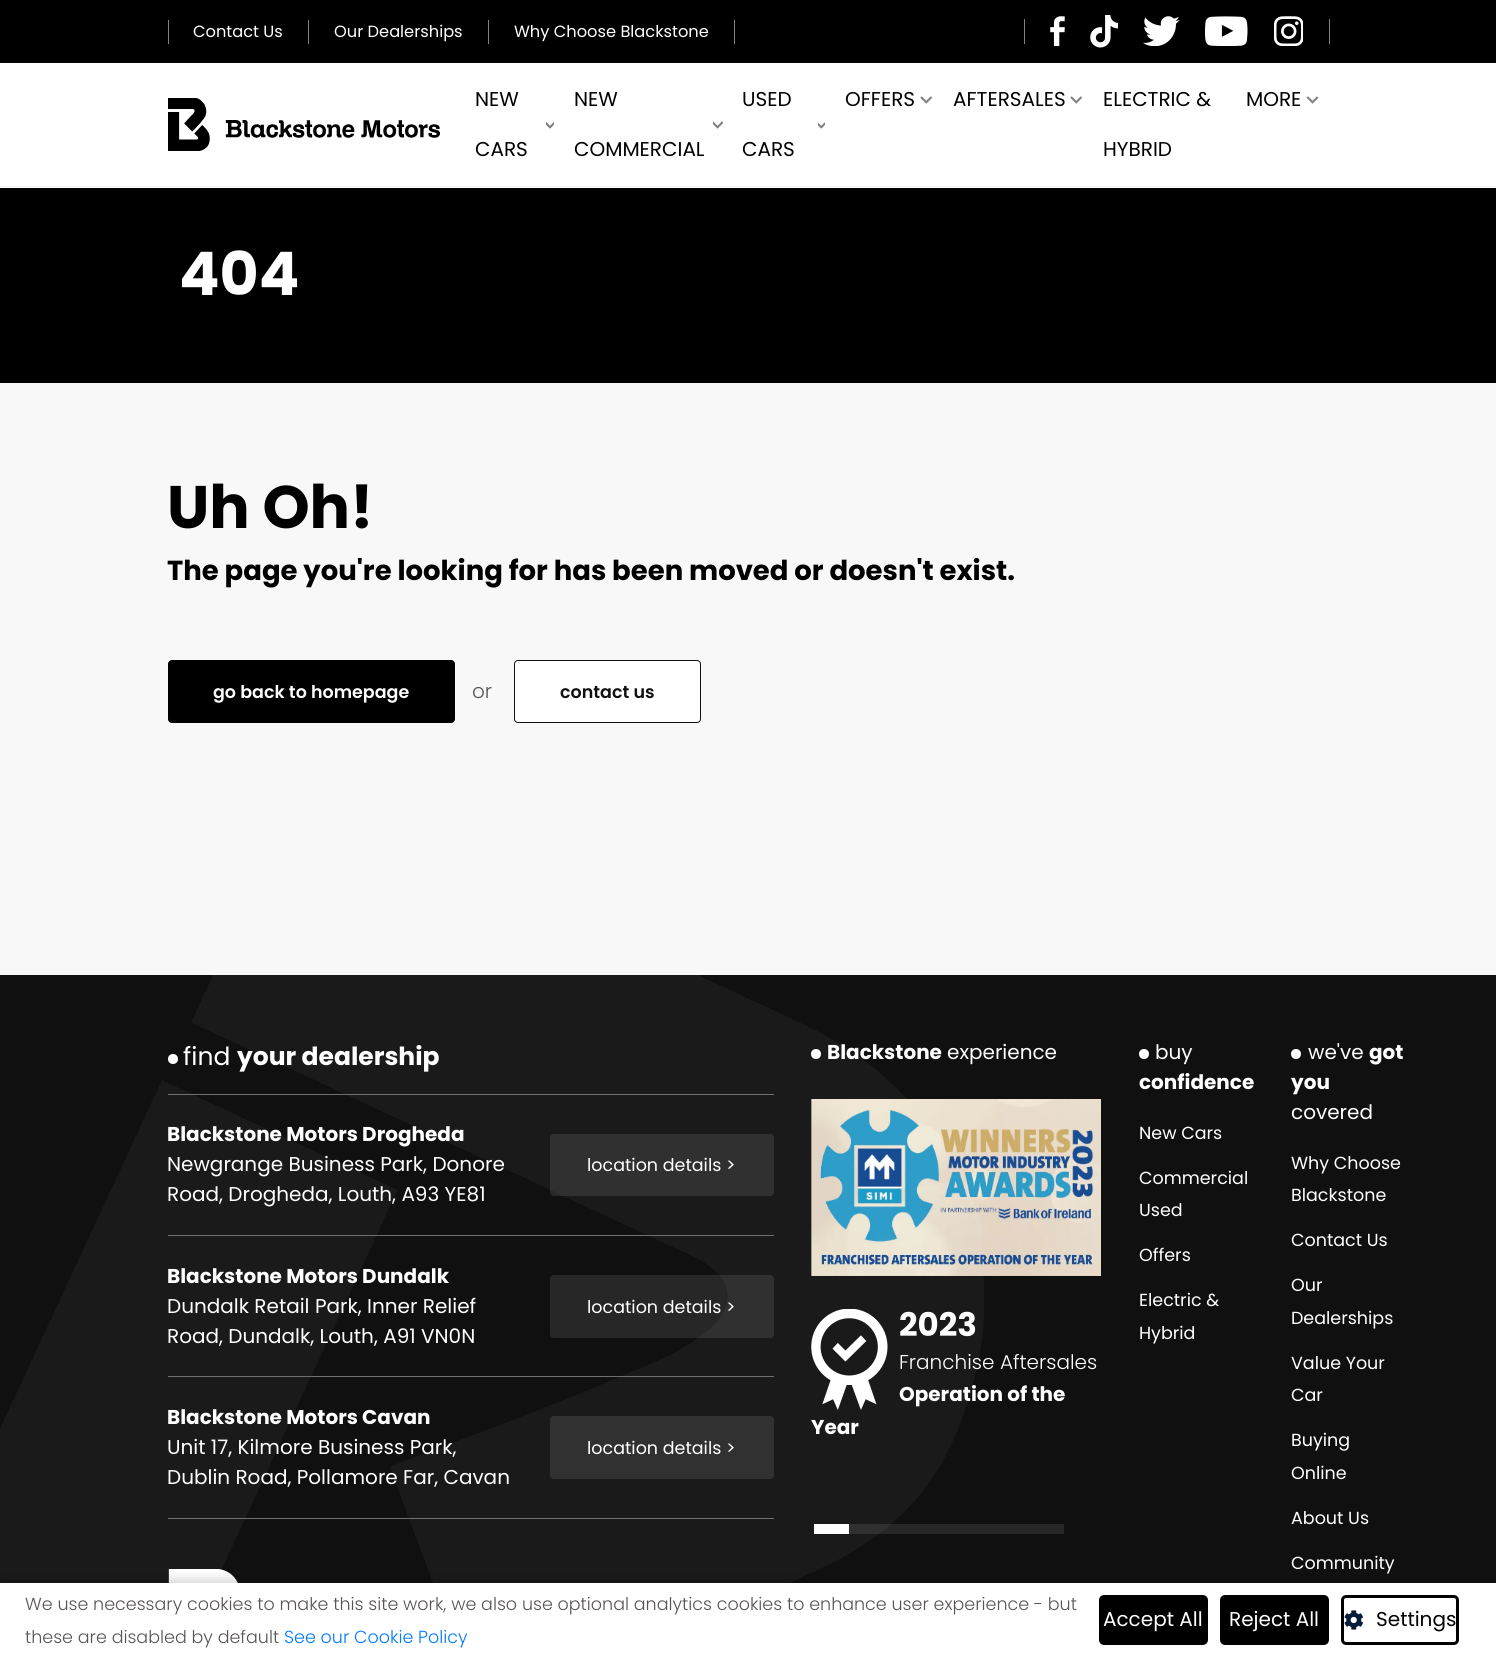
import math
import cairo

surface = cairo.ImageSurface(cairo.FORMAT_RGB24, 1496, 1657)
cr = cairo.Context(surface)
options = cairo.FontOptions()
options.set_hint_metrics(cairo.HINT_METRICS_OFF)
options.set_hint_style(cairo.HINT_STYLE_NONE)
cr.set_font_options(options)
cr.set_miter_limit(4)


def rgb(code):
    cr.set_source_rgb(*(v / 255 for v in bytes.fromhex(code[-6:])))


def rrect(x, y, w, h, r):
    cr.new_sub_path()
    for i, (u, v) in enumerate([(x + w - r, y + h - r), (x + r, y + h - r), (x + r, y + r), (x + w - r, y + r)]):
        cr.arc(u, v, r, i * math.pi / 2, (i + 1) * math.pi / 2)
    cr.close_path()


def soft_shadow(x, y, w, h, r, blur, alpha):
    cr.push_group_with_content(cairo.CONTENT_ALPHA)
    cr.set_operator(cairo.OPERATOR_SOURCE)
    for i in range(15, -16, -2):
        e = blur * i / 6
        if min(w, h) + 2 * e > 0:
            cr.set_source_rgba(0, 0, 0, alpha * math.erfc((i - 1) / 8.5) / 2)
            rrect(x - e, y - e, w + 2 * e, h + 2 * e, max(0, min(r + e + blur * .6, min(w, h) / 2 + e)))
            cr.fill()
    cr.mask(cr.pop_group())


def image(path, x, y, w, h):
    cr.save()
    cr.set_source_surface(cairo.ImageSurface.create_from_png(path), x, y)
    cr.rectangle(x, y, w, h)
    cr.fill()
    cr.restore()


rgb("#f8f8f9")
cr.paint()
for x, y, w, h, color in [
    (0, 0, 1496, 63, "#000000"),
    (308, 20, 1, 24, "#808080"),
    (168, 20, 1, 24, "#808080"),
    (488, 20, 1, 24, "#808080"),
    (734, 20, 1, 24, "#808080"),
    (1024, 19, 1, 25, "#808080"),
]:
    rgb(color)
    cr.rectangle(x, y, w, h)
    cr.fill()
image("img/1.png", 1050, 16, 15, 30)
image("img/2.png", 1090, 15, 28, 33)
image("img/3.png", 1143, 16, 37, 30)
image("img/4.png", 1205, 16, 43, 30)
image("img/5.png", 1274, 16, 29, 30)
for x, y, w, h, color in [
    (1329, 19, 1, 25, "#808080"),
    (0, 63, 1496, 125, "#ffffff"),
    (0, 186, 1496, 1, "#f2f2f2"),
]:
    rgb(color)
    cr.rectangle(x, y, w, h)
    cr.fill()
image("img/6.png", 168, 98, 272, 53)
image("img/7.png", 546, 122, 8, 7)
image("img/8.png", 713, 121, 10, 8)
image("img/9.png", 818, 122, 7, 7)
image("img/10.png", 920, 96, 13, 8)
image("img/10.png", 1070, 96, 13, 8)
image("img/11.png", 1306, 96, 13, 8)
rgb("#000000")
cr.rectangle(0, 188, 1496, 195)
cr.fill()
rrect(168.5, 660.5, 286, 62, 3.5)
cr.fill_preserve()
cr.set_line_width(1)
cr.stroke()
rgb("#ffffff")
rrect(514.5, 660.5, 186, 62, 3.5)
cr.fill_preserve()
rgb("#101010")
cr.stroke()
cr.rectangle(0, 975, 1496, 608)
cr.fill()
image("img/12.png", 0, 975, 984, 608)
rgb("#ffffff")
cr.arc(173, 1059, 5, 0, 2 * math.pi)
cr.fill()
rgb("#707070")
cr.rectangle(168, 1094, 606, 1)
cr.fill()
cr.rectangle(168, 1235, 606, 1)
cr.fill()
cr.set_source_rgba(1, 1, 1, 0.1)
rrect(550, 1134, 224, 62, 4)
cr.fill()
rgb("#707070")
cr.rectangle(168, 1376, 606, 1)
cr.fill()
cr.set_source_rgba(1, 1, 1, 0.1)
rrect(550, 1275, 224, 63, 4)
cr.fill()
rgb("#707070")
cr.rectangle(168, 1518, 606, 1)
cr.fill()
rgb("#313131")
rrect(550, 1416, 224, 63, 4)
cr.fill()
image("img/13.png", 168, 1569, 70, 14)
rgb("#ffffff")
cr.arc(816, 1054, 5, 0, 2 * math.pi)
cr.fill()
image("img/14.png", 811, 1099, 290, 177)
image("img/15.png", 811, 1309, 77, 101)
cr.set_source_rgba(1, 1, 1, 0.1)
cr.rectangle(849, 1524, 215, 10)
cr.fill()
rgb("#ffffff")
cr.rectangle(814, 1524, 35, 10)
cr.fill()
cr.arc(1144, 1054, 5, 0, 2 * math.pi)
cr.fill()
cr.arc(1296, 1054, 5, 0, 2 * math.pi)
cr.fill()
rgb("#000000")
soft_shadow(0, 1579, 1496, 75, 0, 5, 0.16)
rgb("#ffffff")
cr.rectangle(0, 1583, 1496, 74)
cr.fill()
rgb("#000000")
rrect(1100.5, 1596.5, 106, 47, 3.5)
cr.fill_preserve()
cr.set_line_width(3)
cr.stroke()
rrect(1221.5, 1596.5, 106, 47, 3.5)
cr.fill_preserve()
cr.stroke()
rrect(1342.5, 1596.5, 115, 47, 3.5)
cr.stroke()
image("img/16.png", 1344, 1610, 19, 20)
cr.select_font_face("Poppins")
cr.set_font_size(16.25)
rgb("#ffffff")
for x, y, s in [
    (193, 37, "Contact Us"),
    (334, 37, "Our Dealerships"),
    (514, 37, "Why Choose Blackstone"),
]:
    cr.move_to(x, y)
    cr.show_text(s)
cr.set_font_size(20)
rgb("#000000")
for x, y, s in [
    (475, 106, "NEW"),
    (475, 156, "CARS"),
    (574, 106, "NEW"),
    (574, 156, "COMMERCIAL"),
    (742, 106, "USED"),
    (742, 156, "CARS"),
    (845, 106, "OFFERS"),
    (953, 106, "AFTERSALES"),
    (1103, 106, "ELECTRIC &"),
    (1103, 156, "HYBRID"),
    (1246, 106, "MORE"),
]:
    cr.move_to(x, y)
    cr.show_text(s)
cr.select_font_face("Poppins", cairo.FONT_SLANT_NORMAL, cairo.FONT_WEIGHT_BOLD)
cr.set_font_size(60)
rgb("#ffffff")
cr.move_to(179, 295)
cr.show_text("404")
rgb("#000000")
cr.move_to(167, 528)
cr.show_text("Uh Oh!")
cr.set_font_size(27.5)
cr.move_to(167, 580)
cr.show_text("The page you're looking for has been moved or doesn't exist.")
cr.select_font_face("Poppins SemiBold")
cr.set_font_size(17.5)
rgb("#ffffff")
cr.move_to(213, 698)
cr.show_text("go back to homepage")
cr.select_font_face("Poppins Light")
cr.set_font_size(20)
rgb("#585454")
cr.move_to(472, 698)
cr.show_text("or")
cr.select_font_face("Poppins SemiBold")
cr.set_font_size(17.5)
rgb("#101010")
cr.move_to(560, 698)
cr.show_text("contact us")
cr.select_font_face("Poppins")
cr.set_font_size(25)
rgb("#ffffff")
cr.move_to(183, 1065)
cr.show_text("find")
cr.select_font_face("Poppins", cairo.FONT_SLANT_NORMAL, cairo.FONT_WEIGHT_BOLD)
cr.move_to(237, 1065)
cr.show_text("your dealership")
cr.set_font_size(20)
cr.move_to(167, 1141)
cr.show_text("Blackstone Motors Drogheda")
cr.select_font_face("Poppins")
cr.move_to(167, 1171)
cr.show_text("Newgrange Business Park, Donore")
cr.move_to(167, 1201)
cr.show_text("Road, Drogheda, Louth, A93 YE81")
cr.set_font_size(17.5)
cr.move_to(587, 1171)
cr.show_text("location details >")
cr.select_font_face("Poppins", cairo.FONT_SLANT_NORMAL, cairo.FONT_WEIGHT_BOLD)
cr.set_font_size(20)
cr.move_to(167, 1283)
cr.show_text("Blackstone Motors Dundalk")
cr.select_font_face("Poppins")
cr.move_to(167, 1313)
cr.show_text("Dundalk Retail Park, Inner Relief")
cr.move_to(167, 1343)
cr.show_text("Road, Dundalk, Louth, A91 VN0N")
cr.set_font_size(17.5)
cr.move_to(587, 1313)
cr.show_text("location details >")
cr.select_font_face("Poppins", cairo.FONT_SLANT_NORMAL, cairo.FONT_WEIGHT_BOLD)
cr.set_font_size(20)
cr.move_to(167, 1424)
cr.show_text("Blackstone Motors Cavan")
cr.select_font_face("Poppins")
cr.move_to(167, 1454)
cr.show_text("Unit 17, Kilmore Business Park,")
cr.move_to(167, 1484)
cr.show_text("Dublin Road, Pollamore Far, Cavan")
cr.set_font_size(17.5)
cr.move_to(587, 1454)
cr.show_text("location details >")
cr.select_font_face("Poppins", cairo.FONT_SLANT_NORMAL, cairo.FONT_WEIGHT_BOLD)
cr.set_font_size(20)
cr.move_to(827, 1059)
cr.show_text("Blackstone")
cr.select_font_face("Poppins")
cr.move_to(947, 1059)
cr.show_text("experience")
cr.select_font_face("Poppins", cairo.FONT_SLANT_NORMAL, cairo.FONT_WEIGHT_BOLD)
cr.set_font_size(32.5)
cr.move_to(899, 1336)
cr.show_text("2023")
cr.select_font_face("Poppins Light")
cr.set_font_size(20)
cr.move_to(899, 1369)
cr.show_text("Franchise Aftersales")
cr.select_font_face("Poppins", cairo.FONT_SLANT_NORMAL, cairo.FONT_WEIGHT_BOLD)
cr.move_to(899, 1401)
cr.show_text("Operation of the")
cr.move_to(811, 1434)
cr.show_text("Year")
cr.select_font_face("Poppins")
cr.move_to(1155, 1059)
cr.show_text("buy")
cr.select_font_face("Poppins", cairo.FONT_SLANT_NORMAL, cairo.FONT_WEIGHT_BOLD)
cr.move_to(1139, 1089)
cr.show_text("confidence")
cr.select_font_face("Poppins")
cr.set_font_size(17.5)
for x, y, s in [
    (1139, 1139, "New Cars"),
    (1139, 1184, "Commercial"),
    (1139, 1216, "Used"),
    (1139, 1261, "Offers"),
    (1139, 1306, "Electric &"),
    (1139, 1339, "Hybrid"),
]:
    cr.move_to(x, y)
    cr.show_text(s)
cr.set_font_size(20)
cr.move_to(1308, 1059)
cr.show_text("we've")
cr.select_font_face("Poppins", cairo.FONT_SLANT_NORMAL, cairo.FONT_WEIGHT_BOLD)
cr.move_to(1369, 1059)
cr.show_text("got")
cr.move_to(1291, 1089)
cr.show_text("you")
cr.select_font_face("Poppins")
cr.move_to(1291, 1119)
cr.show_text("covered")
cr.set_font_size(17.5)
for x, y, s in [
    (1291, 1169, "Why Choose"),
    (1291, 1201, "Blackstone"),
    (1291, 1246, "Contact Us"),
    (1291, 1291, "Our"),
    (1291, 1324, "Dealerships"),
    (1291, 1369, "Value Your"),
    (1291, 1401, "Car"),
    (1291, 1446, "Buying"),
    (1291, 1479, "Online"),
    (1291, 1524, "About Us"),
    (1291, 1569, "Community"),
]:
    cr.move_to(x, y)
    cr.show_text(s)
cr.select_font_face("Poppins Light")
rgb("#585454")
cr.move_to(25, 1610)
cr.show_text("We use necessary cookies to make this site work, we also use optional analytics cookies to enhance user experience - but")
cr.move_to(25, 1643)
cr.show_text("these are disabled by default")
rgb("#007bff")
cr.move_to(284, 1643)
cr.show_text("See our Cookie Policy")
cr.select_font_face("Poppins")
cr.set_font_size(20)
rgb("#ffffff")
cr.move_to(1103, 1626)
cr.show_text("Accept All")
cr.move_to(1229, 1626)
cr.show_text("Reject All")
rgb("#000000")
cr.move_to(1376, 1626)
cr.show_text("Settings")
surface.write_to_png("page.png")
